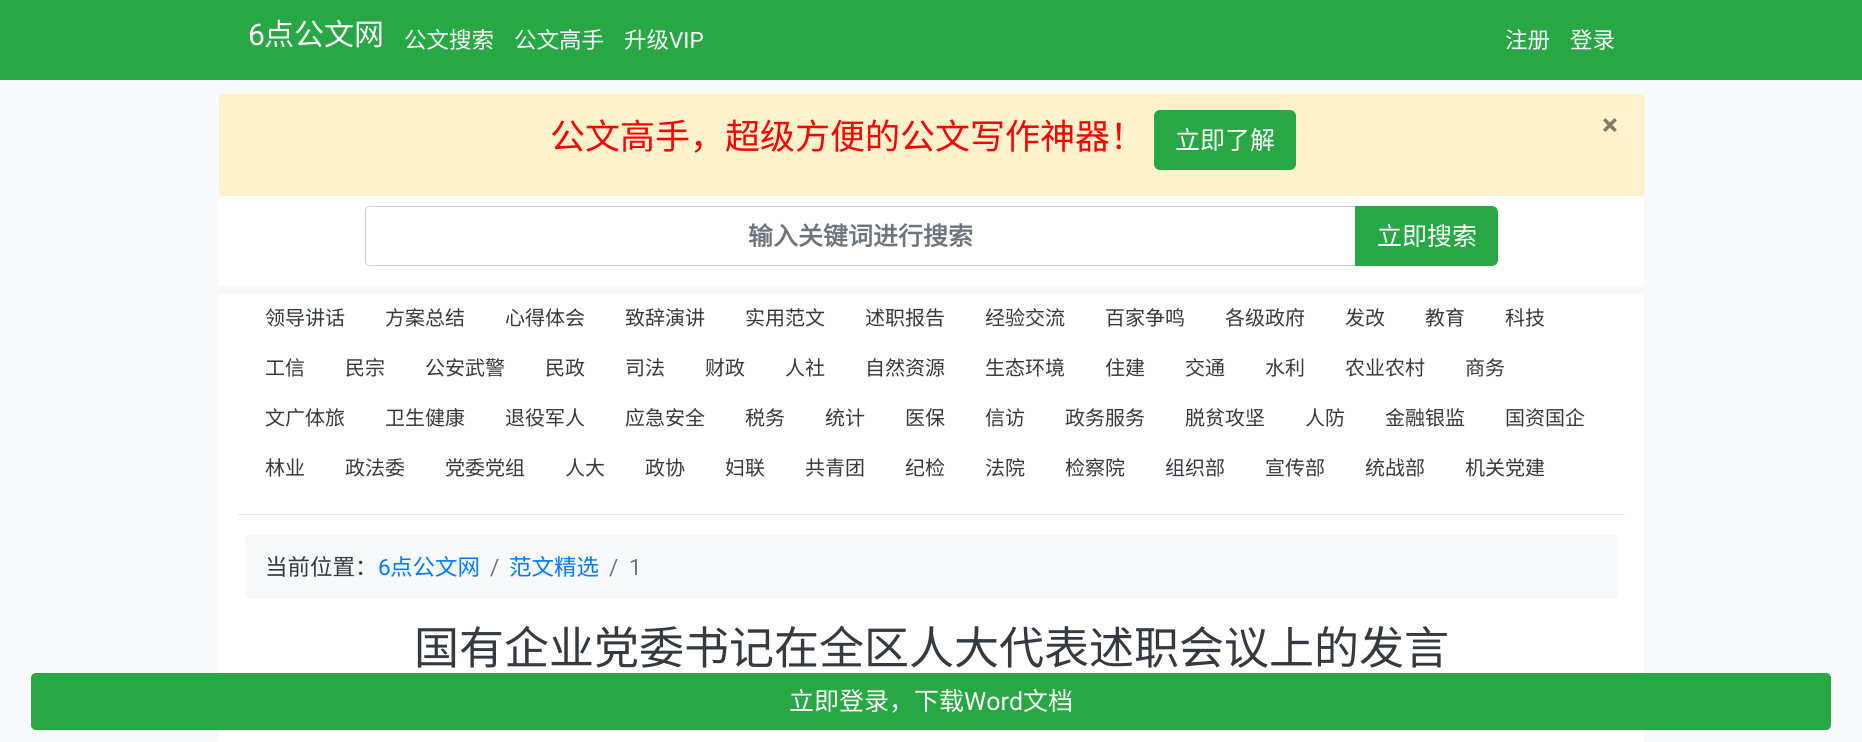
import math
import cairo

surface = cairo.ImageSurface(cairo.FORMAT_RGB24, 1862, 742)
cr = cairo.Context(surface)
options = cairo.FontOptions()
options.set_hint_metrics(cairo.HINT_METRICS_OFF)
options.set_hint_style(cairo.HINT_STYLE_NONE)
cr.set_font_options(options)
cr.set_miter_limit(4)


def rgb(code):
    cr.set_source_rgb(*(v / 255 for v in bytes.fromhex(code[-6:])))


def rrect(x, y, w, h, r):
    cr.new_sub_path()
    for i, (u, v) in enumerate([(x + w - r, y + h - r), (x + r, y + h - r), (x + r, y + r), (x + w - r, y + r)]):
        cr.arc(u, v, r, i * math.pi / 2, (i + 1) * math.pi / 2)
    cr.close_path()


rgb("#f8f9fa")
cr.paint()
rgb("#28a745")
cr.rectangle(0, 0, 1862, 80)
cr.fill()
rgb("#fff3cd")
rrect(219.5, 94.5, 1424, 101, 4.5)
cr.fill_preserve()
rgb("#ffeeba")
cr.set_line_width(1)
cr.stroke()
rgb("#28a745")
rrect(1154.5, 110.5, 141, 59, 5.5)
cr.fill_preserve()
cr.stroke()
rgb("#ffffff")
cr.rectangle(219, 196, 1425, 90)
cr.fill()
cr.new_path()
cr.move_to(370, 206.5)
cr.line_to(1355.5, 206.5)
cr.line_to(1355.5, 265.5)
cr.line_to(370, 265.5)
cr.curve_to(367.5, 265.5, 365.5, 263.5, 365.5, 261)
cr.line_to(365.5, 211)
cr.curve_to(365.5, 208.5, 367.5, 206.5, 370, 206.5)
cr.close_path()
rgb("#ced4da")
cr.stroke()
rgb("#28a745")
cr.new_path()
cr.move_to(1355.5, 206.5)
cr.line_to(1492, 206.5)
cr.curve_to(1495, 206.5, 1497.5, 209, 1497.5, 212)
cr.line_to(1497.5, 260)
cr.curve_to(1497.5, 263, 1495, 265.5, 1492, 265.5)
cr.line_to(1355.5, 265.5)
cr.close_path()
cr.fill_preserve()
cr.stroke()
rgb("#ffffff")
cr.rectangle(219, 294, 1425, 448)
cr.fill()
rgb("#e6e6e6")
cr.rectangle(238, 514, 1387, 1)
cr.fill()
rgb("#f8f9fa")
rrect(245, 535, 1373, 64, 5)
cr.fill()
rgb("#28a745")
rrect(31, 673, 1800, 57, 5)
cr.fill()
cr.select_font_face("Roboto")
cr.set_font_size(30)
rgb("#ffffff")
cr.move_to(248, 45)
cr.show_text("6")
cr.select_font_face("Noto Sans CJK SC")
cr.move_to(264, 45)
cr.show_text("点公文网")
cr.set_font_size(22.5)
for x, y, s in [
    (404, 48, "公文搜索"),
    (514, 48, "公文高手"),
    (624, 48, "升级"),
]:
    cr.move_to(x, y)
    cr.show_text(s)
cr.select_font_face("Roboto")
cr.move_to(669, 48)
cr.show_text("VIP")
cr.select_font_face("Noto Sans CJK SC")
cr.move_to(1505, 48)
cr.show_text("注册")
cr.move_to(1570, 48)
cr.show_text("登录")
cr.set_font_size(35)
rgb("#ff0000")
cr.move_to(550, 149)
cr.show_text("公文高手，超级方便的公文写作神器！")
cr.set_font_size(25)
rgb("#ffffff")
cr.move_to(1175, 149)
cr.show_text("立即了解")
cr.select_font_face("Roboto", cairo.FONT_SLANT_NORMAL, cairo.FONT_WEIGHT_BOLD)
cr.set_font_size(30)
rgb("#807a67")
cr.move_to(1602, 135)
cr.show_text("×")
cr.select_font_face("Noto Sans CJK SC", cairo.FONT_SLANT_NORMAL, cairo.FONT_WEIGHT_BOLD)
cr.set_font_size(25)
rgb("#6c757d")
cr.move_to(748, 245)
cr.show_text("输入关键词进行搜索")
cr.select_font_face("Noto Sans CJK SC")
rgb("#ffffff")
cr.move_to(1377, 245)
cr.show_text("立即搜索")
cr.set_font_size(20)
rgb("#343a40")
for x, y, s in [
    (265, 325, "领导讲话"),
    (385, 325, "方案总结"),
    (505, 325, "心得体会"),
    (625, 325, "致辞演讲"),
    (745, 325, "实用范文"),
    (865, 325, "述职报告"),
    (985, 325, "经验交流"),
    (1105, 325, "百家争鸣"),
    (1225, 325, "各级政府"),
    (1345, 325, "发改"),
    (1425, 325, "教育"),
    (1505, 325, "科技"),
    (265, 375, "工信"),
    (345, 375, "民宗"),
    (425, 375, "公安武警"),
    (545, 375, "民政"),
    (625, 375, "司法"),
    (705, 375, "财政"),
    (785, 375, "人社"),
    (865, 375, "自然资源"),
    (985, 375, "生态环境"),
    (1105, 375, "住建"),
    (1185, 375, "交通"),
    (1265, 375, "水利"),
    (1345, 375, "农业农村"),
    (1465, 375, "商务"),
    (265, 425, "文广体旅"),
    (385, 425, "卫生健康"),
    (505, 425, "退役军人"),
    (625, 425, "应急安全"),
    (745, 425, "税务"),
    (825, 425, "统计"),
    (905, 425, "医保"),
    (985, 425, "信访"),
    (1065, 425, "政务服务"),
    (1185, 425, "脱贫攻坚"),
    (1305, 425, "人防"),
    (1385, 425, "金融银监"),
    (1505, 425, "国资国企"),
    (265, 475, "林业"),
    (345, 475, "政法委"),
    (445, 475, "党委党组"),
    (565, 475, "人大"),
    (645, 475, "政协"),
    (725, 475, "妇联"),
    (805, 475, "共青团"),
    (905, 475, "纪检"),
    (985, 475, "法院"),
    (1065, 475, "检察院"),
    (1165, 475, "组织部"),
    (1265, 475, "宣传部"),
    (1365, 475, "统战部"),
    (1465, 475, "机关党建"),
]:
    cr.move_to(x, y)
    cr.show_text(s)
cr.set_font_size(22.5)
cr.move_to(265, 575)
cr.show_text("当前位置：")
cr.select_font_face("Roboto")
rgb("#007bff")
cr.move_to(378, 575)
cr.show_text("6")
cr.select_font_face("Noto Sans CJK SC")
cr.move_to(390, 575)
cr.show_text("点公文网")
cr.select_font_face("Roboto")
rgb("#6c757d")
cr.move_to(490, 575)
cr.show_text("/")
cr.select_font_face("Noto Sans CJK SC")
rgb("#007bff")
cr.move_to(509, 575)
cr.show_text("范文精选")
cr.select_font_face("Roboto")
rgb("#6c757d")
cr.move_to(609, 575)
cr.show_text("/")
cr.move_to(629, 575)
cr.show_text("1")
cr.select_font_face("Noto Sans CJK SC")
cr.set_font_size(45)
rgb("#343a40")
cr.move_to(414, 664)
cr.show_text("国有企业党委书记在全区人大代表述职会议上的发言")
cr.set_font_size(25)
rgb("#ffffff")
cr.move_to(789, 710)
cr.show_text("立即登录，下载")
cr.select_font_face("Roboto")
cr.move_to(964, 710)
cr.show_text("Word")
cr.select_font_face("Noto Sans CJK SC")
cr.move_to(1023, 710)
cr.show_text("文档")
surface.write_to_png("page.png")
